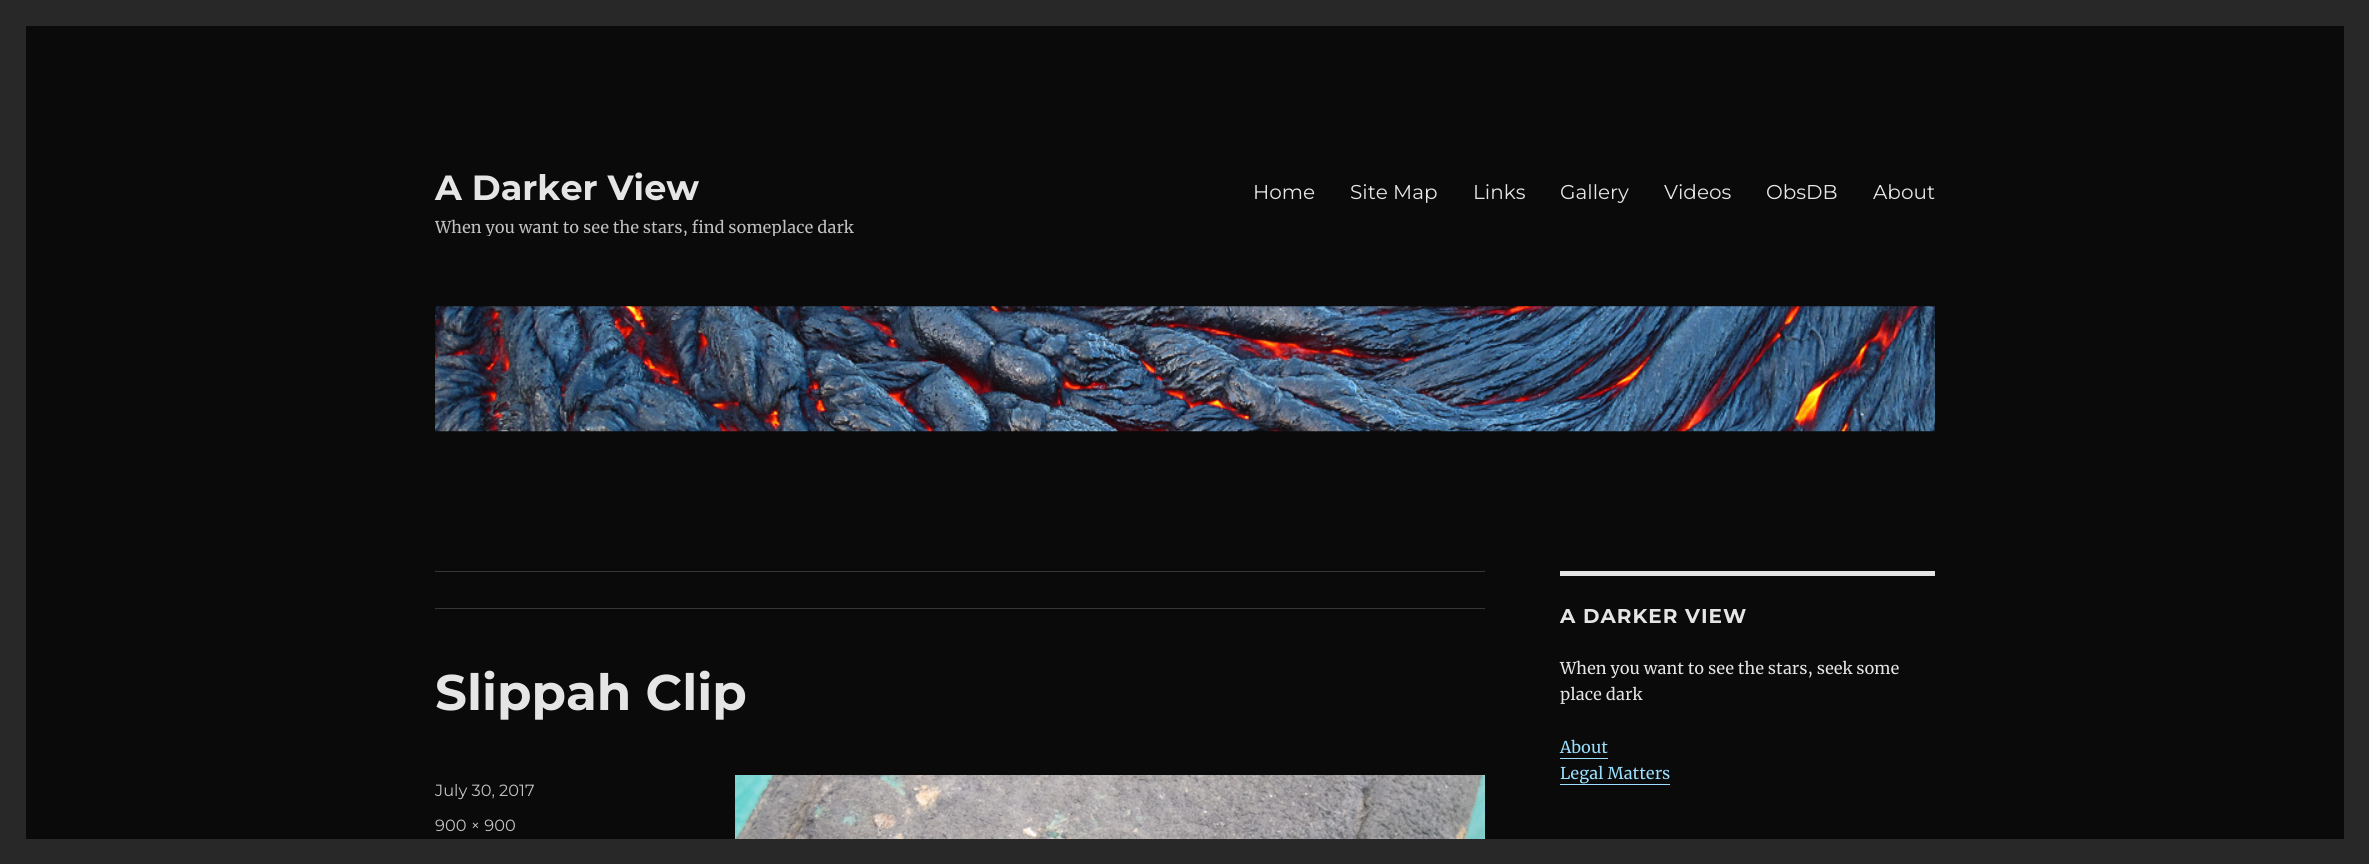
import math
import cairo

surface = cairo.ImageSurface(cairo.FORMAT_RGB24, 2369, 864)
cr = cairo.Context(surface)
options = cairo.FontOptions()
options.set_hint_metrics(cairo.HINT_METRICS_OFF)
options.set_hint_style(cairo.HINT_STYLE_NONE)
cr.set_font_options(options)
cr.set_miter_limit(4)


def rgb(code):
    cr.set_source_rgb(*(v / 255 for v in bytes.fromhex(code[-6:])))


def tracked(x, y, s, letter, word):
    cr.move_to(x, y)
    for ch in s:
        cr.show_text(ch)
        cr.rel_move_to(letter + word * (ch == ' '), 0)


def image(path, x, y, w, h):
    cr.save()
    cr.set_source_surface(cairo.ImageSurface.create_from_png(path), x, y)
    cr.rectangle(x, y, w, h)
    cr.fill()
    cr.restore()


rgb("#282828")
cr.paint()
rgb("#0a0a0a")
cr.rectangle(26, 26, 2318, 813)
cr.fill()
image("img/1.png", 435, 306, 1500, 126)
rgb("#363636")
cr.rectangle(435, 571, 1050, 1)
cr.fill()
cr.rectangle(435, 608, 1050, 1)
cr.fill()
image("img/2.png", 735, 775, 750, 64)
rgb("#e5e5e5")
cr.rectangle(1560, 571, 375, 5)
cr.fill()
rgb("#9adffd")
cr.new_path()
cr.move_to(1560, 758)
cr.line_to(1560, 759)
cr.line_to(1608, 759)
cr.line_to(1608, 738)
cr.line_to(1608, 758)
cr.close_path()
cr.fill()
cr.rectangle(1560, 784, 110, 1)
cr.fill()
cr.select_font_face("Montserrat Thin")
cr.set_font_size(35)
rgb("#e5e5e5")
cr.move_to(435, 200)
cr.show_text("A Darker View")
cr.save()
cr.rectangle(435, 166, 419, 70)
cr.clip()
cr.select_font_face("Merriweather")
cr.set_font_size(16.25)
rgb("#c1c1c1")
cr.move_to(435, 233)
cr.show_text("When you want to see the stars, find someplace dark")
cr.restore()
cr.select_font_face("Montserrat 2 Thin")
cr.set_font_size(20)
for x, y, s in [
    (1253, 199, "Home"),
    (1350, 199, "Site Map"),
    (1473, 199, "Links"),
    (1560, 199, "Gallery"),
    (1664, 199, "Videos"),
    (1766, 199, "ObsDB"),
    (1873, 199, "About"),
]:
    cr.move_to(x, y)
    cr.show_text(s)
cr.select_font_face("Montserrat Thin")
cr.set_font_size(50)
cr.move_to(435, 710)
cr.show_text("Slippah Clip")
cr.select_font_face("Montserrat 2 Thin")
cr.set_font_size(16.25)
rgb("#c1c1c1")
cr.move_to(435, 796)
cr.show_text("July 30, 2017")
cr.move_to(435, 831)
cr.show_text("900 × 900")
cr.select_font_face("Montserrat Thin")
cr.set_font_size(20)
rgb("#e5e5e5")
tracked(1560, 623, "A DARKER VIEW", 1, 0)
cr.select_font_face("Merriweather")
cr.set_font_size(16.25)
cr.move_to(1560, 674)
cr.show_text("When you want to see the stars, seek some")
cr.move_to(1560, 700)
cr.show_text("place dark")
rgb("#9adffd")
cr.move_to(1560, 753)
cr.show_text("About")
cr.move_to(1560, 779)
cr.show_text("Legal Matters")
surface.write_to_png("page.png")
